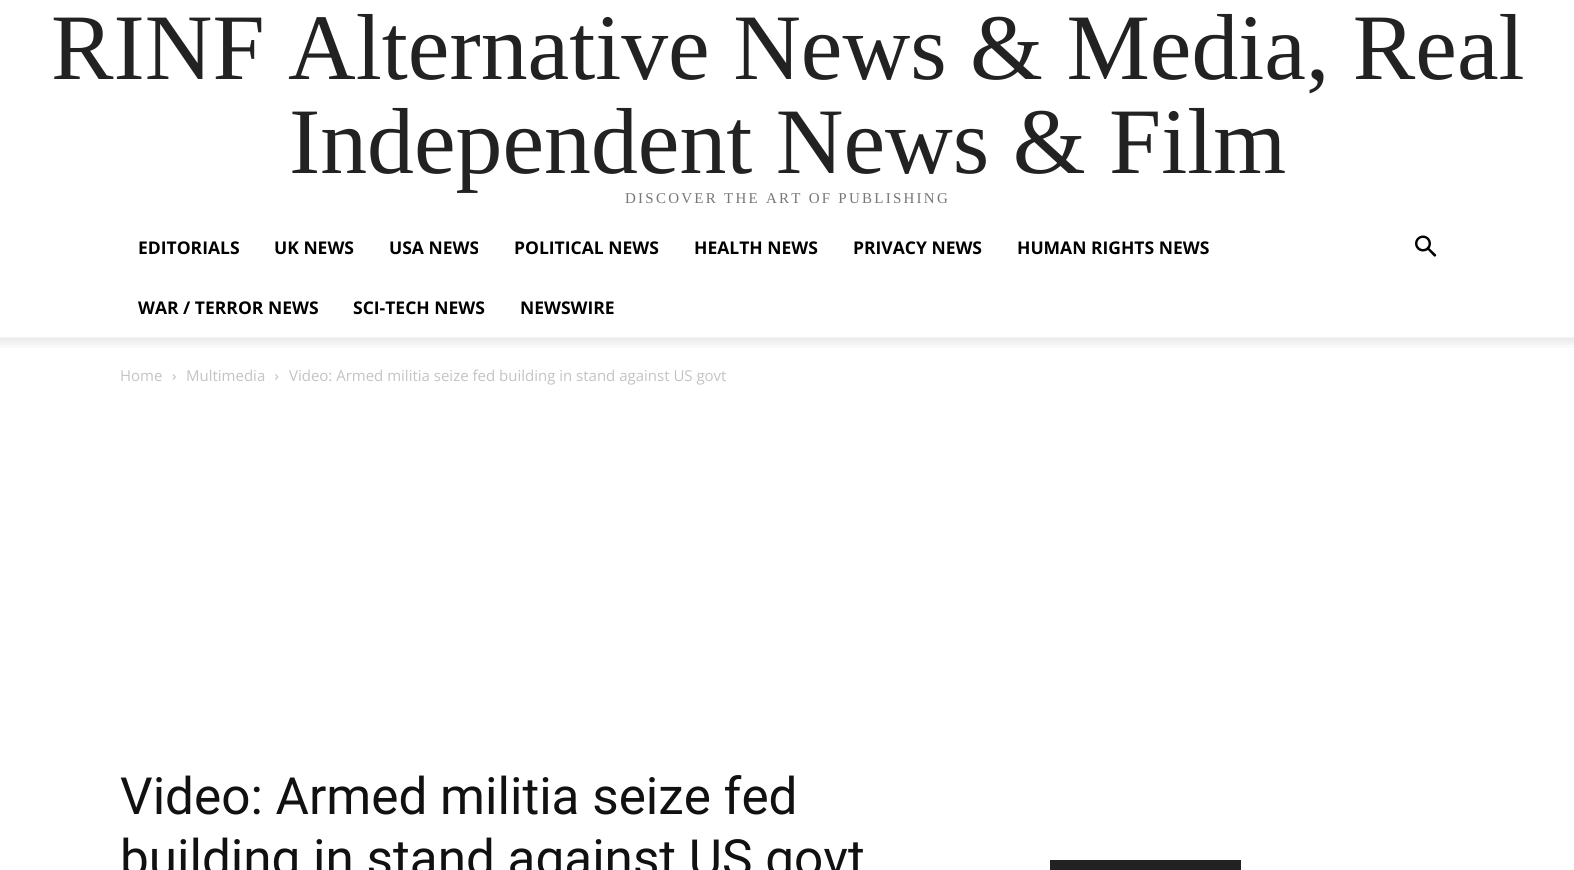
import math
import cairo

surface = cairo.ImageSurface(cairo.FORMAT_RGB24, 1574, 870)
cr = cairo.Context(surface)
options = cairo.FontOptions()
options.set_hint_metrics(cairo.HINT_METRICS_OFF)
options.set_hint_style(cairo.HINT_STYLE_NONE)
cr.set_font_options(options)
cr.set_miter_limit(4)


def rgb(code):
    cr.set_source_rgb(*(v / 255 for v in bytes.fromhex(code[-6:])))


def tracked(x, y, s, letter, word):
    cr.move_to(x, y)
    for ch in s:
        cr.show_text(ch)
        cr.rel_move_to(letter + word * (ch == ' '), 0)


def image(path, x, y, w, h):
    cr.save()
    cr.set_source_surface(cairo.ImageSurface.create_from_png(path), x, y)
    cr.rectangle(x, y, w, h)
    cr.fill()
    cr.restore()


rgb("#ffffff")
cr.paint()
image("img/1.png", 1415, 235, 22, 22)
image("img/2.png", 0, 337, 1574, 11)
image("img/3.png", 172, 374, 4, 6)
image("img/4.png", 275, 374, 4, 6)
rgb("#222222")
cr.rectangle(1050, 860, 191, 10)
cr.fill()
cr.select_font_face("Liberation Serif")
cr.set_font_size(93.75)
cr.move_to(51, 79)
cr.show_text("RINF Alternative News & Media, Real")
cr.move_to(289, 173)
cr.show_text("Independent News & Film")
cr.set_font_size(15)
rgb("#777777")
tracked(625, 203, "DISCOVER THE ART OF PUBLISHING", 2.25, 0)
cr.select_font_face("Open Sans", cairo.FONT_SLANT_NORMAL, cairo.FONT_WEIGHT_BOLD)
cr.set_font_size(17.5)
rgb("#000000")
for x, y, s in [
    (138, 254, "EDITORIALS"),
    (274, 254, "UK NEWS"),
    (389, 254, "USA NEWS"),
    (514, 254, "POLITICAL NEWS"),
    (694, 254, "HEALTH NEWS"),
    (853, 254, "PRIVACY NEWS"),
    (1017, 254, "HUMAN RIGHTS NEWS"),
    (138, 314, "WAR / TERROR NEWS"),
    (353, 314, "SCI-TECH NEWS"),
    (520, 314, "NEWSWIRE"),
]:
    cr.move_to(x, y)
    cr.show_text(s)
cr.select_font_face("Open Sans")
cr.set_font_size(15)
rgb("#c3c3c3")
for x, y, s in [
    (120, 381, "Home"),
    (186, 381, "Multimedia"),
    (289, 381, "Video: Armed militia seize fed building in stand against US govt"),
]:
    cr.move_to(x, y)
    cr.show_text(s)
cr.select_font_face("Roboto")
cr.set_font_size(51.25)
rgb("#111111")
cr.move_to(120, 814)
cr.show_text("Video: Armed militia seize fed")
cr.move_to(120, 876)
cr.show_text("building in stand against US govt")
surface.write_to_png("page.png")
